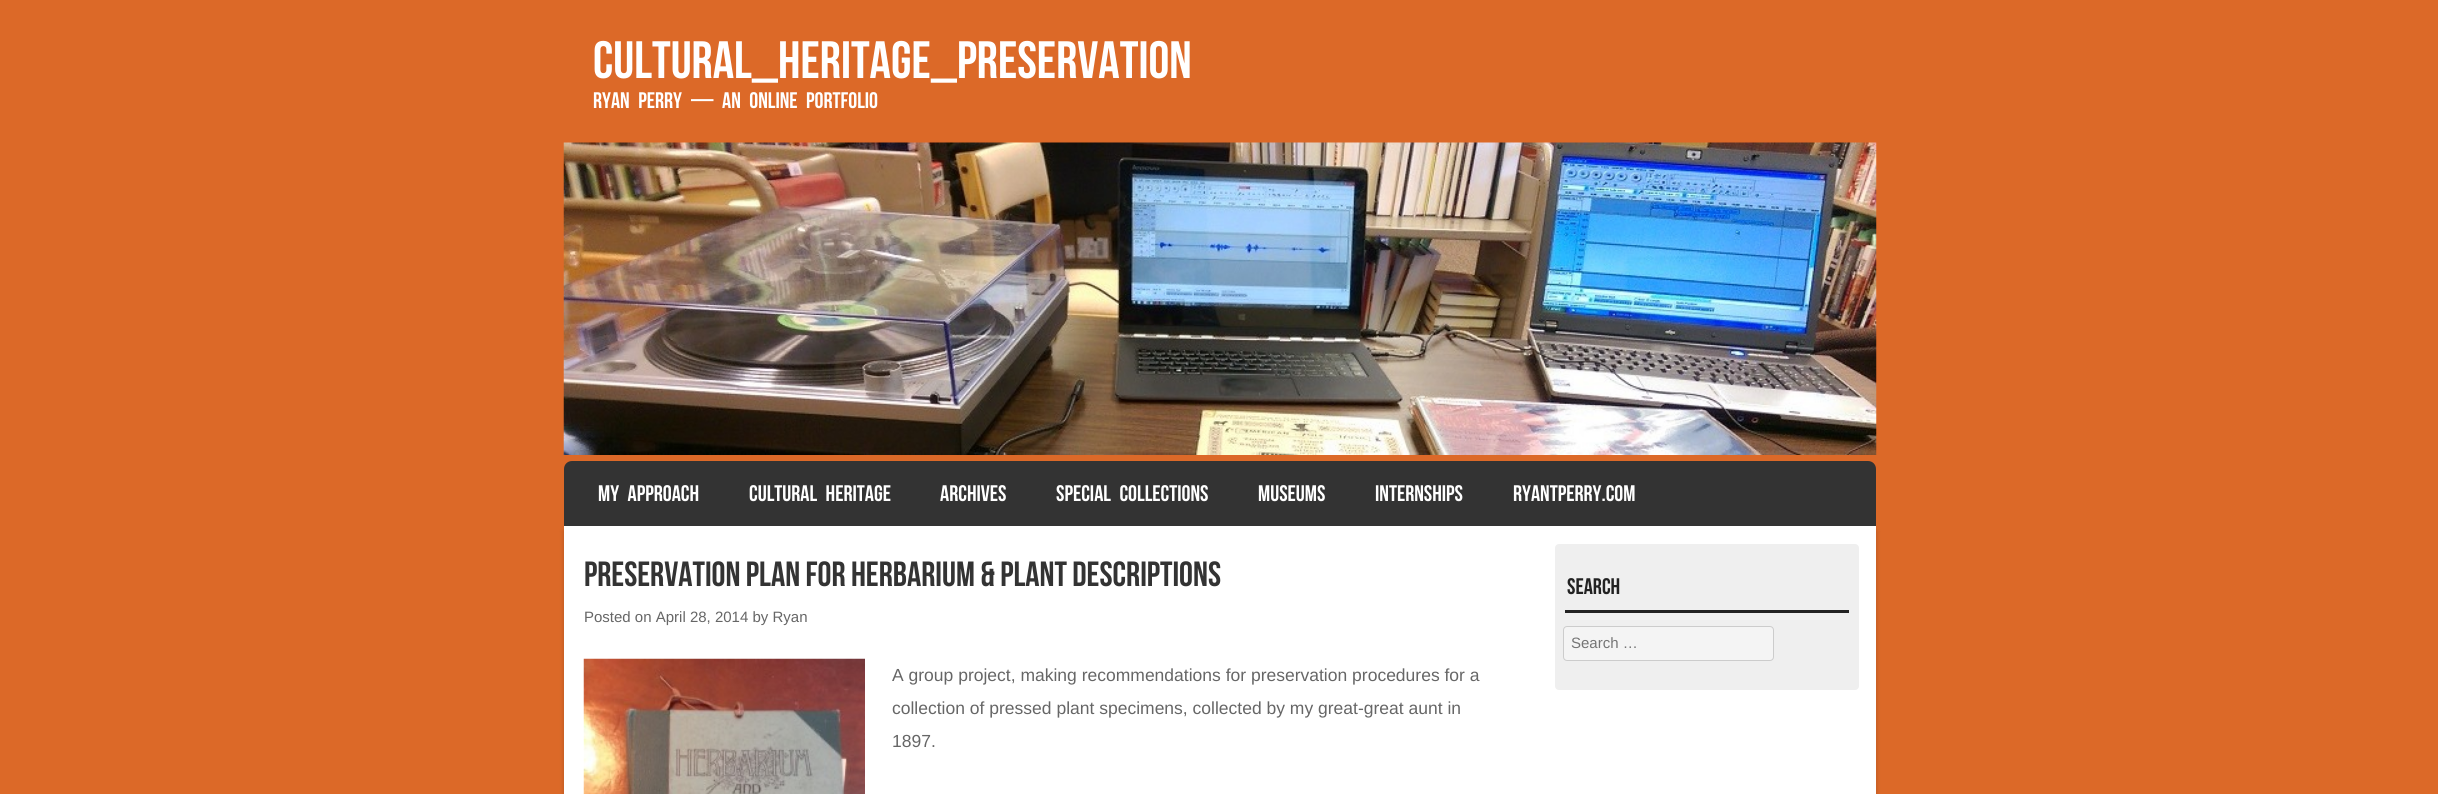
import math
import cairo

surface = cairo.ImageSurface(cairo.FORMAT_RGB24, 2438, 794)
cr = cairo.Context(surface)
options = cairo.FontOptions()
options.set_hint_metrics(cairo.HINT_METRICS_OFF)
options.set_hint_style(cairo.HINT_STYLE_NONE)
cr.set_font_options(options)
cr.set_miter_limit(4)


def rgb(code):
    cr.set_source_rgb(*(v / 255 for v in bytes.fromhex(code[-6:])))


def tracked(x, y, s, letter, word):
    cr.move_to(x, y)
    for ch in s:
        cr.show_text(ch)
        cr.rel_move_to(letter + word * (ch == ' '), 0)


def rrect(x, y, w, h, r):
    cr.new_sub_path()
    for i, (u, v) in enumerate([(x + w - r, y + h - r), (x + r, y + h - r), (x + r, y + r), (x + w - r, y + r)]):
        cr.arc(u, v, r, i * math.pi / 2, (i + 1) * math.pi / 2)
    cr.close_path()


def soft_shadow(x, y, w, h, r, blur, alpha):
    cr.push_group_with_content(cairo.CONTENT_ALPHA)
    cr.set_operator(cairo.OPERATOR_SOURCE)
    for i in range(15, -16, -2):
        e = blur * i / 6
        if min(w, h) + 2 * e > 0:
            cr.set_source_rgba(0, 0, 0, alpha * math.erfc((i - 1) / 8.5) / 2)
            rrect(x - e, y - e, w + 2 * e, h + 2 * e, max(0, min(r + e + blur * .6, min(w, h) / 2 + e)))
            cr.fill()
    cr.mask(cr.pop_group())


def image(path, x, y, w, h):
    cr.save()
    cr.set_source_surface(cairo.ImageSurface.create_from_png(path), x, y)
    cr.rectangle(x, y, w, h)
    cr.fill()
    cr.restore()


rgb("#dc6928")
cr.paint()
image("img/1.png", 563, 142, 1314, 313)
rgb("#333333")
cr.new_path()
cr.move_to(572, 461)
cr.line_to(1868, 461)
cr.curve_to(1872.5, 461, 1876, 464.5, 1876, 469)
cr.line_to(1876, 526)
cr.line_to(564, 526)
cr.line_to(564, 469)
cr.curve_to(564, 464.5, 567.5, 461, 572, 461)
cr.close_path()
cr.fill()
rgb("#000000")
soft_shadow(564, 531, 1312, 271, 0, 2.5, 0.2)
rgb("#ffffff")
cr.rectangle(564, 526, 1312, 268)
cr.fill()
image("img/2.png", 583, 658, 282, 136)
rgb("#efefef")
rrect(1555, 544, 304, 146, 4)
cr.fill()
rgb("#222222")
cr.rectangle(1565, 610, 284, 3)
cr.fill()
rgb("#f4f4f4")
rrect(1563.5, 626.5, 210, 34, 3.5)
cr.fill_preserve()
rgb("#cccccc")
cr.set_line_width(1)
cr.stroke()
cr.select_font_face("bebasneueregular")
cr.set_font_size(52.5)
rgb("#ffffff")
cr.move_to(593, 78)
cr.show_text("Cultural_Heritage_Preservation")
cr.set_font_size(22.5)
for x, y, s in [
    (593, 108, "Ryan Perry"),
    (691, 108, "— An Online Portfolio"),
    (598, 501, "MY APPROACH"),
    (749, 501, "CULTURAL HERITAGE"),
]:
    tracked(x, y, s, 0, 5)
cr.move_to(940, 501)
cr.show_text("ARCHIVES")
tracked(1056, 501, "SPECIAL COLLECTIONS", 0, 5)
for x, y, s in [
    (1258, 501, "MUSEUMS"),
    (1375, 501, "INTERNSHIPS"),
    (1513, 501, "RYANTPERRY.COM"),
]:
    cr.move_to(x, y)
    cr.show_text(s)
cr.set_font_size(35)
rgb("#333333")
cr.move_to(584, 586)
cr.show_text("Preservation Plan for Herbarium & Plant Descriptions")
cr.select_font_face("Liberation Sans")
cr.set_font_size(15)
rgb("#666666")
cr.move_to(584, 622)
cr.show_text("Posted on April 28, 2014 by Ryan")
cr.set_font_size(17.5)
for x, y, s in [
    (892, 681, "A group project, making recommendations for preservation procedures for a"),
    (892, 714, "collection of pressed plant specimens, collected by my great-great aunt in"),
    (892, 747, "1897."),
]:
    cr.move_to(x, y)
    cr.show_text(s)
cr.select_font_face("bebasneueregular")
cr.set_font_size(22.5)
rgb("#222222")
cr.move_to(1567, 594)
cr.show_text("Search")
cr.select_font_face("Liberation Sans")
cr.set_font_size(15)
rgb("#757575")
cr.move_to(1571, 648)
cr.show_text("Search …")
surface.write_to_png("page.png")
